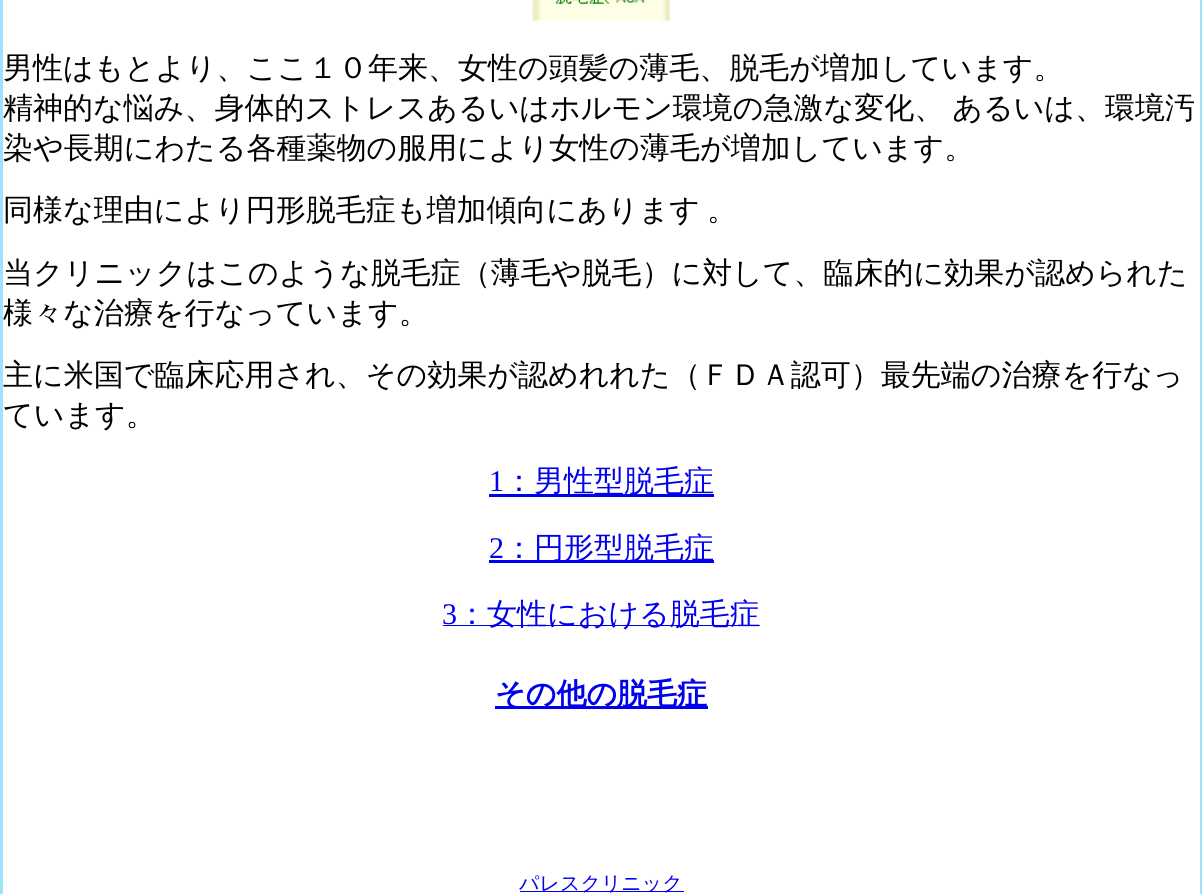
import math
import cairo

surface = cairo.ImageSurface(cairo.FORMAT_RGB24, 1202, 894)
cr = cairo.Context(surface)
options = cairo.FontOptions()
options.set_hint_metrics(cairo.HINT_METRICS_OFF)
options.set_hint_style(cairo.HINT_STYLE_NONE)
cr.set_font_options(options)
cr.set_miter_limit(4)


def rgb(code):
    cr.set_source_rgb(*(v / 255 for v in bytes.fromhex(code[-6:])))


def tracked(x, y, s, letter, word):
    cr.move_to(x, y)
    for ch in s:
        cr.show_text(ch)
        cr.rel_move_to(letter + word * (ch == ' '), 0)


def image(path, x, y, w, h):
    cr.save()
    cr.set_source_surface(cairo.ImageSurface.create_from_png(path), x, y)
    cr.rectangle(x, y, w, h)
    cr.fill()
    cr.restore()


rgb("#9de3fb")
cr.paint()
rgb("#ffffff")
cr.rectangle(3, 0, 1197, 894)
cr.fill()
image("img/1.png", 532, 0, 138, 22)
for x, y, w, h, color in [
    (489, 494, 225, 3, "#0000ee"),
    (489, 560, 225, 3, "#0000ee"),
    (443, 625, 317, 1, "#0000ee"),
    (495, 706, 213, 3, "#0000ee"),
    (520, 891, 164, 1, "#0000ee"),
]:
    rgb(color)
    cr.rectangle(x, y, w, h)
    cr.fill()
cr.select_font_face("WenQuanYi Zen Hei Medium")
cr.set_font_size(30)
rgb("#000000")
cr.move_to(3, 78)
cr.show_text("男性はもとより、ここ１０年来、女性の頭髪の薄毛、脱毛が増加しています。")
tracked(3, 118, "精神的な悩み、身体的ストレスあるいはホルモン環境の急激な変化、 あるいは、環境汚", 0, -1)
for x, y, s in [
    (3, 158, "染や長期にわたる各種薬物の服用により女性の薄毛が増加しています。"),
    (3, 220, "同様な理由により円形脱毛症も増加傾向にあります"),
    (707, 220, "。"),
    (3, 283, "当クリニックはこのような脱毛症（薄毛や脱毛）に対して、臨床的に効果が認められた"),
    (3, 323, "様々な治療を行なっています。"),
    (3, 385, "主に米国で臨床応用され、その効果が認めれれた（ＦＤＡ認可）最先端の治療を行なっ"),
    (3, 425, "ています。"),
]:
    cr.move_to(x, y)
    cr.show_text(s)
cr.select_font_face("Liberation Serif")
rgb("#0000ee")
cr.move_to(489, 491)
cr.show_text("1")
cr.select_font_face("WenQuanYi Zen Hei Medium")
cr.move_to(504, 491)
cr.show_text("：男性型脱毛症")
cr.select_font_face("Liberation Serif")
cr.move_to(489, 558)
cr.show_text("2")
cr.select_font_face("WenQuanYi Zen Hei Medium")
cr.move_to(504, 558)
cr.show_text("：円形型脱毛症")
cr.select_font_face("Liberation Serif")
cr.move_to(442, 624)
cr.show_text("3")
cr.select_font_face("WenQuanYi Zen Hei Medium")
cr.move_to(457, 624)
cr.show_text("：女性における脱毛症")
cr.select_font_face("WenQuanYi Zen Hei", cairo.FONT_SLANT_NORMAL, cairo.FONT_WEIGHT_BOLD)
cr.move_to(495, 704)
cr.show_text("その他の脱毛症")
cr.select_font_face("WenQuanYi Zen Hei Medium")
cr.set_font_size(20)
cr.move_to(519, 890)
cr.show_text("パレスクリニック")
surface.write_to_png("page.png")
